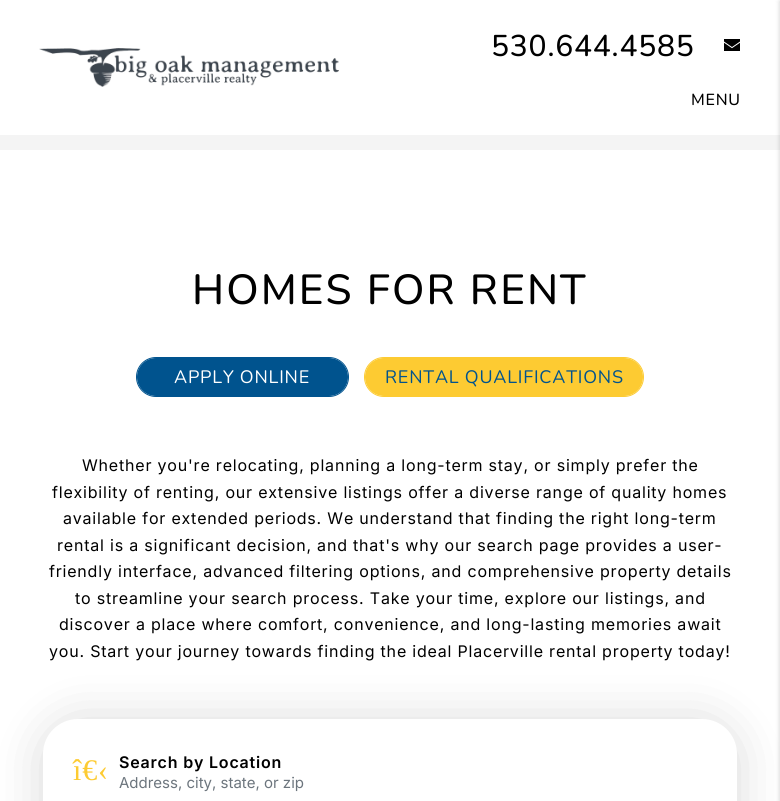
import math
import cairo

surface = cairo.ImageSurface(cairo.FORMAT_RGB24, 780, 801)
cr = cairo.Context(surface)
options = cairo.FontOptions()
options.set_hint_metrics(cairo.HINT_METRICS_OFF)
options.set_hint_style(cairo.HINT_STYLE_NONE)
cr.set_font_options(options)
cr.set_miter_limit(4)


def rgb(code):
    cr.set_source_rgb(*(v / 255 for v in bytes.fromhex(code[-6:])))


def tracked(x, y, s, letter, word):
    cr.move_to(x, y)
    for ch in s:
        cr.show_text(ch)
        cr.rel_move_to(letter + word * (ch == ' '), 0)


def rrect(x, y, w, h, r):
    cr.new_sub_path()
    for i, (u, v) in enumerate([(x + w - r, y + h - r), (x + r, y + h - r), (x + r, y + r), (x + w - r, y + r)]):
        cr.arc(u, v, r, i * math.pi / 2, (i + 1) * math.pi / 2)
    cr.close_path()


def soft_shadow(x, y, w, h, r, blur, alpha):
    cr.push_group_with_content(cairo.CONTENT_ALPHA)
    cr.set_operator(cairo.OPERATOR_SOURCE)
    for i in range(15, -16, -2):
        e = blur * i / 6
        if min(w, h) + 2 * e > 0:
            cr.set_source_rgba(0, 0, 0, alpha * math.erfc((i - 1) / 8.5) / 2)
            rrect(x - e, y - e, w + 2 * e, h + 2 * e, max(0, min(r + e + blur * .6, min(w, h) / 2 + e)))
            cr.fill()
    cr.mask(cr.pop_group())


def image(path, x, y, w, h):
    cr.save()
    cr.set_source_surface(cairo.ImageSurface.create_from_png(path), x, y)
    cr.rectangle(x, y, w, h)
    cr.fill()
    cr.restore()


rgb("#ffffff")
cr.paint()
image("img/1.png", 39, 48, 300, 39)
image("img/2.png", 724, 39, 16, 12)
rgb("#f4f4f4")
cr.rectangle(0, 135, 780, 15)
cr.fill()
rgb("#000000")
soft_shadow(780, 1, 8, 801, 0, 2.5, 0.2)
rrect(136.5, 357.5, 212, 39, 19.5)
rgb("#00538e")
cr.set_line_width(1)
cr.stroke()
rrect(137, 358, 211, 38, 19)
cr.fill()
rrect(364.5, 357.5, 279, 39, 19.5)
rgb("#fdcb32")
cr.stroke()
rrect(365, 358, 278, 38, 19)
cr.fill()
rgb("#000000")
soft_shadow(43, 721, 694, 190, 35, 25, 0.15)
rgb("#ffffff")
rrect(43, 719, 694, 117, 35)
cr.fill()
cr.select_font_face("Nunito Medium")
cr.set_font_size(30)
rgb("#000000")
tracked(491, 56, "530.644.4585", 0.8, 0)
cr.set_font_size(16)
tracked(691, 105, "MENU", 0.8, 0)
cr.set_font_size(42)
tracked(192, 304, "HOMES FOR RENT", 2.1, 0)
cr.select_font_face("Nunito")
cr.set_font_size(18)
rgb("#ffffff")
tracked(174, 383, "APPLY ONLINE", 0.8, 0)
rgb("#00538e")
tracked(385, 383, "RENTAL QUALIFICATIONS", 0.8, 0)
cr.select_font_face("Inter")
cr.set_font_size(16)
rgb("#000000")
for x, y, s in [
    (82, 471, "Whether you're relocating, planning a long-term stay, or simply prefer the"),
    (52, 498, "flexibility of renting, our extensive listings offer a diverse range of quality homes"),
    (63, 524, "available for extended periods. We understand that finding the right long-term"),
    (57, 551, "rental is a significant decision, and that's why our search page provides a user-"),
    (49, 577, "friendly interface, advanced filtering options, and comprehensive property details"),
    (75, 604, "to streamline your search process. Take your time, explore our listings, and"),
    (59, 630, "discover a place where comfort, convenience, and long-lasting memories await"),
    (49, 657, "you. Start your journey towards finding the ideal Placerville rental property today!"),
]:
    tracked(x, y, s, 0.8, 0)
cr.select_font_face("Liberation Serif")
cr.set_font_size(30)
rgb("#fdcb32")
tracked(73, 780, "î€‹", 0.8, 0)
cr.select_font_face("Inter SemiBold")
cr.set_font_size(16)
rgb("#000000")
tracked(119, 768, "Search by Location", 0.8, 0)
cr.select_font_face("Inter")
cr.set_font_size(15)
rgb("#6c757d")
cr.move_to(119, 788)
cr.show_text("Address, city, state, or zip")
surface.write_to_png("page.png")
